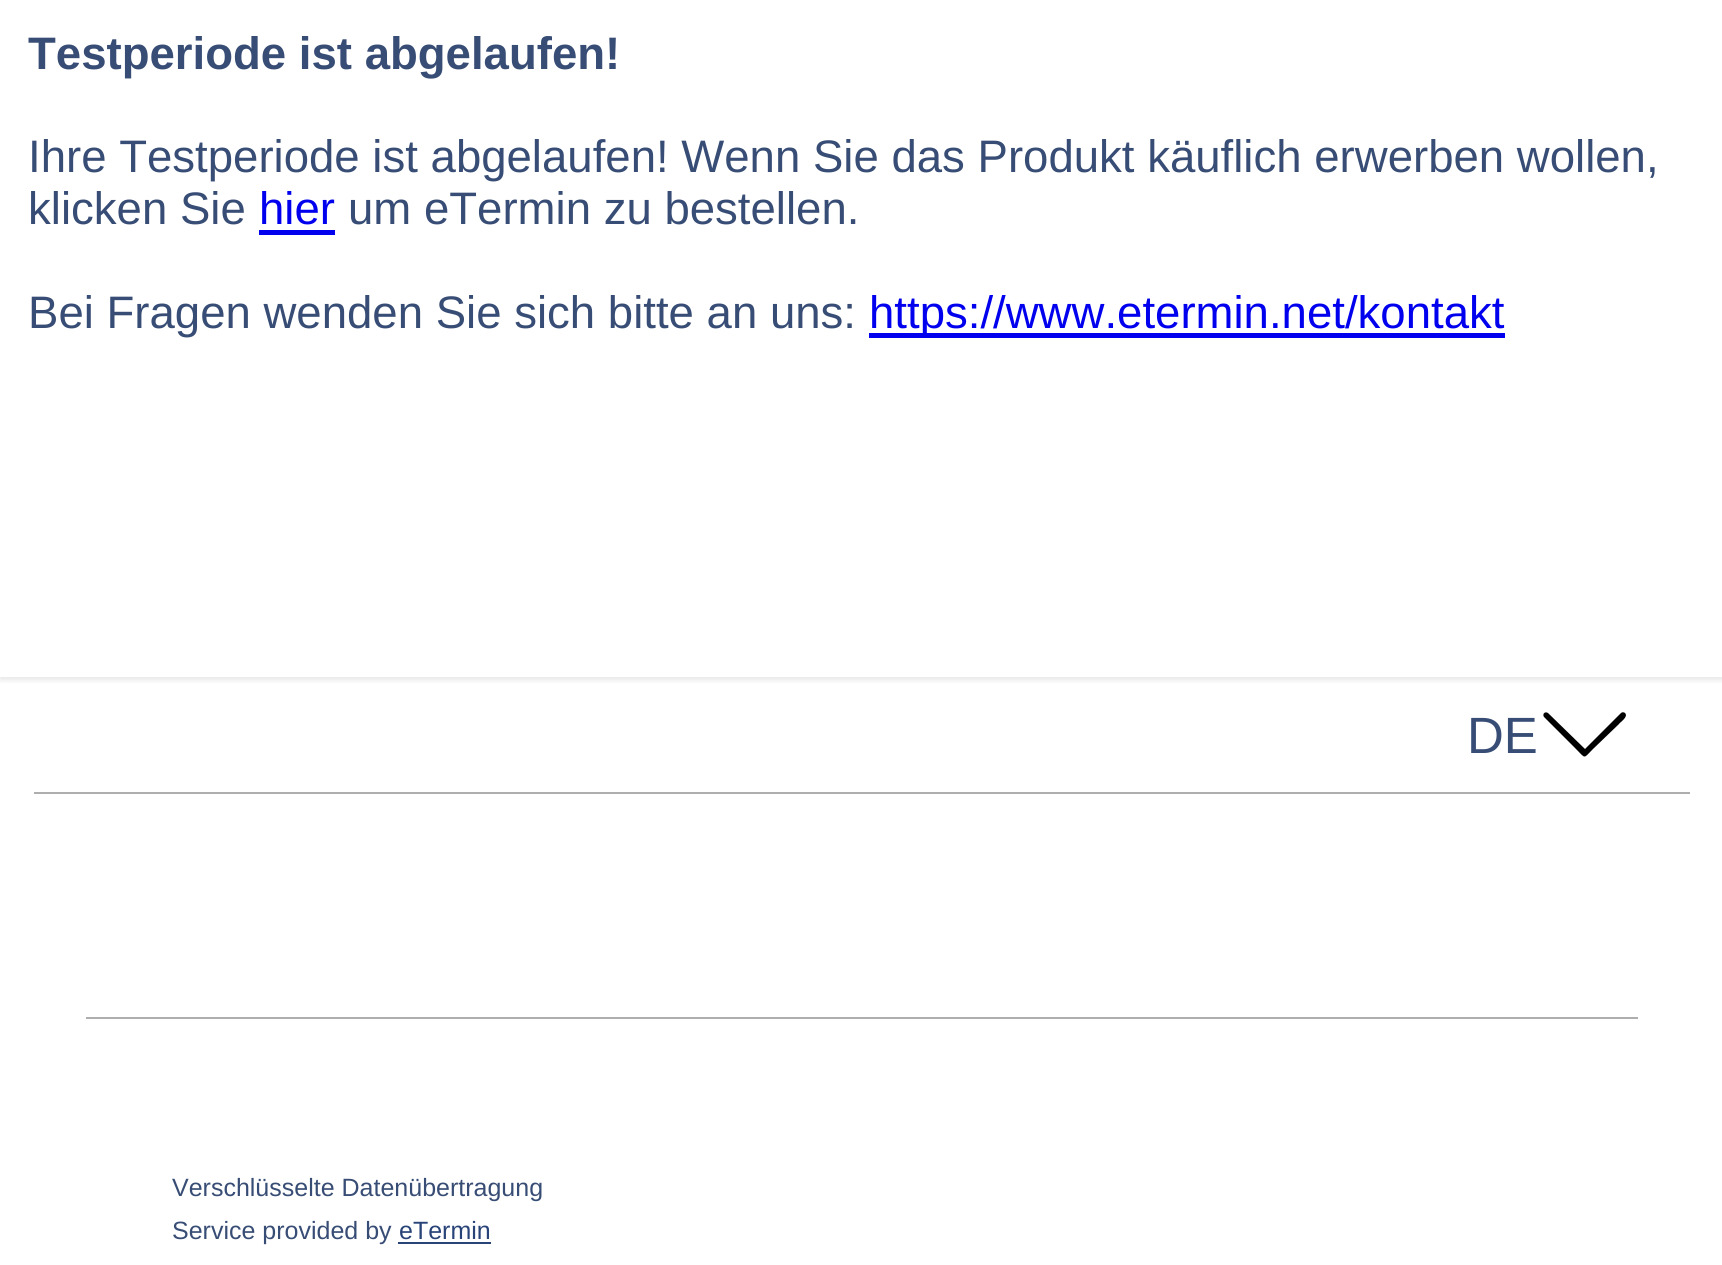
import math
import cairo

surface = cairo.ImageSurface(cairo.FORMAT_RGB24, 1722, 1265)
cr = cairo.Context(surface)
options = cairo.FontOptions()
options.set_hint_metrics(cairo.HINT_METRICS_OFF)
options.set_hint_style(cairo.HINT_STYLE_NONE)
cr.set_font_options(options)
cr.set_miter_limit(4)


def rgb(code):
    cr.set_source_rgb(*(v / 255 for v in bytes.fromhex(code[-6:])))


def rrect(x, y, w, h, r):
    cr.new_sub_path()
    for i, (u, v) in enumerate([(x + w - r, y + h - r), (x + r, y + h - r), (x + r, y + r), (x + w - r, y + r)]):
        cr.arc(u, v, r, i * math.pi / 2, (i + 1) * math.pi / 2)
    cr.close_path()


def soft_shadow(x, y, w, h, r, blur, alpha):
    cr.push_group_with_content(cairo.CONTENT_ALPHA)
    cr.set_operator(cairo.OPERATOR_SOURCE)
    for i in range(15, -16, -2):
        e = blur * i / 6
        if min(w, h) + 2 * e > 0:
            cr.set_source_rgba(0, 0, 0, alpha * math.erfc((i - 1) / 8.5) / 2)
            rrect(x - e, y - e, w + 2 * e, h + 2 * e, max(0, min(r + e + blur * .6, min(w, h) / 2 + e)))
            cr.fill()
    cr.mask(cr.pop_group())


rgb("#ffffff")
cr.paint()
cr.save()
cr.rectangle(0, 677, 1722, 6)
cr.clip()
rgb("#000000")
soft_shadow(0, 2, 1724, 678, 0, 3, 0.1)
cr.restore()
for x, y, w, h, color in [
    (259, 230, 76, 5, "#0000ee"),
    (869, 333, 636, 5, "#0000ee"),
    (34, 792, 1656, 2, "#aeaeaf"),
]:
    rgb(color)
    cr.rectangle(x, y, w, h)
    cr.fill()
rgb("#000000")
cr.new_path()
cr.move_to(1625, 713)
cr.curve_to(1624, 712, 1622, 712, 1621, 713)
cr.line_to(1585, 749)
cr.line_to(1548, 713)
cr.curve_to(1545, 711, 1542, 714, 1544, 717)
cr.line_to(1576, 749)
cr.curve_to(1586, 759, 1583, 759, 1593, 749)
cr.line_to(1619, 724)
cr.curve_to(1619, 723, 1629, 717, 1625, 713)
cr.close_path()
cr.fill()
rgb("#aeaeaf")
cr.rectangle(86, 1017, 1552, 2)
cr.fill()
rgb("#284378")
cr.rectangle(398, 1242, 93, 2)
cr.fill()
cr.select_font_face("Liberation Sans", cairo.FONT_SLANT_NORMAL, cairo.FONT_WEIGHT_BOLD)
cr.set_font_size(45.55)
rgb("#384d75")
cr.move_to(28, 69)
cr.show_text("Testperiode ist abgelaufen!")
cr.select_font_face("Liberation Sans")
cr.move_to(28, 172)
cr.show_text("Ihre Testperiode ist abgelaufen! Wenn Sie das Produkt käuflich erwerben wollen,")
cr.move_to(28, 224)
cr.show_text("klicken Sie")
rgb("#0000ee")
cr.move_to(259, 224)
cr.show_text("hier")
rgb("#384d75")
cr.move_to(348, 224)
cr.show_text("um eTermin zu bestellen.")
cr.move_to(28, 328)
cr.show_text("Bei Fragen wenden Sie sich bitte an uns:")
rgb("#0000ee")
cr.move_to(869, 328)
cr.show_text("https://www.etermin.net/kontakt")
cr.set_font_size(51)
rgb("#384d75")
cr.move_to(1467, 753)
cr.show_text("DE")
cr.set_font_size(25)
cr.move_to(172, 1196)
cr.show_text("Verschlüsselte Datenübertragung")
cr.move_to(172, 1239)
cr.show_text("Service provided by")
rgb("#284378")
cr.move_to(399, 1239)
cr.show_text("eTermin")
surface.write_to_png("page.png")
